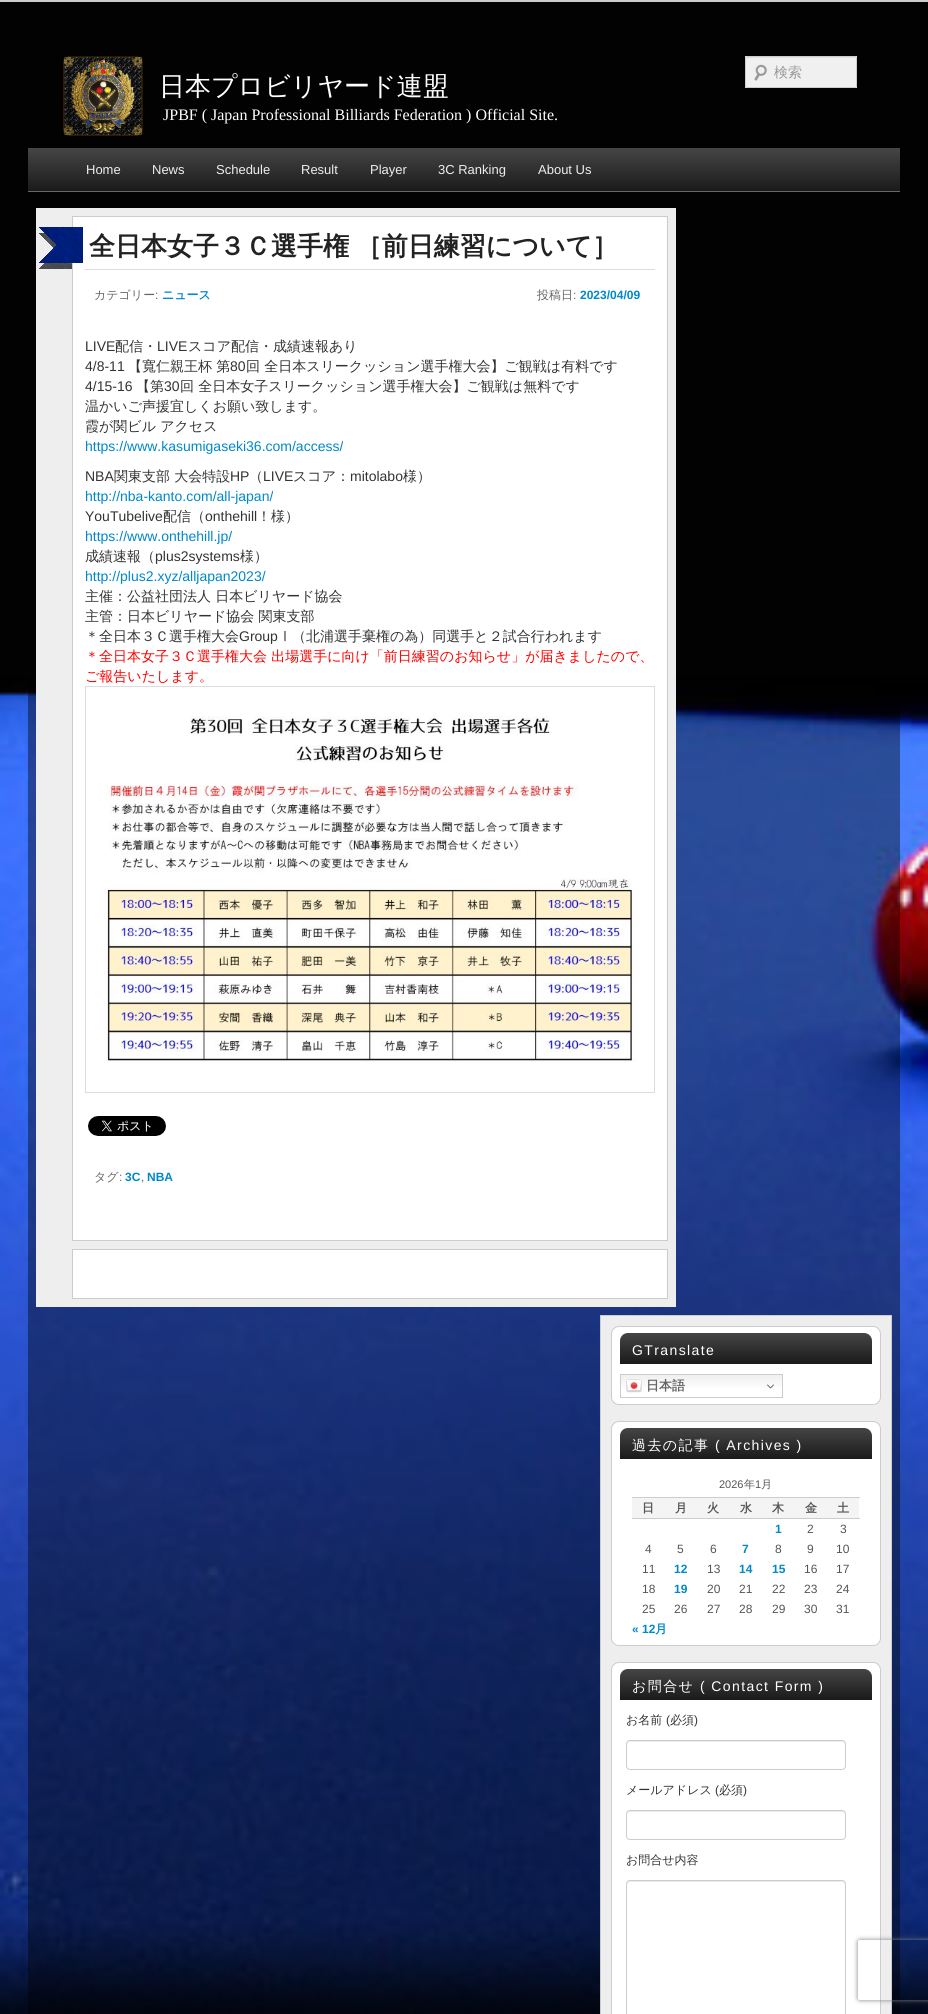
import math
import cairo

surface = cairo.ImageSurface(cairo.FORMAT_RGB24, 928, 2014)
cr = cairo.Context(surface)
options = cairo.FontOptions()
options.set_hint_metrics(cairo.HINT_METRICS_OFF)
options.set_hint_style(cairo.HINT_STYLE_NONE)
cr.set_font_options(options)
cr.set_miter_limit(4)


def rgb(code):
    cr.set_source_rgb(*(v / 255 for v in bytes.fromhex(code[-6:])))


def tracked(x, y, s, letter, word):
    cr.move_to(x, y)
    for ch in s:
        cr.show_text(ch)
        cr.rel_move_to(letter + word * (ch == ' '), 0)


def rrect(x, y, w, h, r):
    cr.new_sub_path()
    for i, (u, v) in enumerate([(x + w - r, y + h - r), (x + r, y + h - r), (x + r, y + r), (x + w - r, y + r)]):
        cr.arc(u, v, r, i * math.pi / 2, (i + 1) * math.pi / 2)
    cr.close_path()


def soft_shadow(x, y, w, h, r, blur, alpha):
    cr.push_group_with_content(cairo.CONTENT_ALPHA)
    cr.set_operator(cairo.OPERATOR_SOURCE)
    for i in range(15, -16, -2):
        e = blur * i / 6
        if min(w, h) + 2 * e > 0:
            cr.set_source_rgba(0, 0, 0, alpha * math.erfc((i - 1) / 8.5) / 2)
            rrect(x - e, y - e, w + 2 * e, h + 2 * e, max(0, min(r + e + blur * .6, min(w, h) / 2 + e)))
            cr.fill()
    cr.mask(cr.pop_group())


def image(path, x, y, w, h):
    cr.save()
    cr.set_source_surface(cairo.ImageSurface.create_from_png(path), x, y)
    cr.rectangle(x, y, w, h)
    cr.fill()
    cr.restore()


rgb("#020202")
cr.paint()
image("img/1.png", 0, 677, 928, 1337)
rgb("#cccccc")
cr.rectangle(0, 0, 928, 2)
cr.fill()
image("img/2.png", 63, 56, 80, 80)
rgb("#f0f0f0")
cr.rectangle(745, 56, 112, 32)
cr.fill()
image("img/3.png", 754, 64, 13, 17)
cr.set_source_rgba(0, 0, 0, 0.07)
cr.new_path()
cr.move_to(747, 58)
cr.line_to(856, 58)
cr.line_to(856, 59)
cr.line_to(855, 57)
cr.line_to(765, 57)
cr.curve_to(761, 57, 746, 52, 746, 59)
cr.curve_to(746, 58, 746, 58, 747, 58)
cr.close_path()
cr.fill()
rrect(745.5, 56.5, 111, 31, 1.5)
rgb("#cccccc")
cr.set_line_width(1)
cr.stroke()
gradient = cairo.LinearGradient(464, 148, 464, 191)
gradient.add_color_stop_rgba(0, 0.271, 0.271, 0.271, 1)
gradient.add_color_stop_rgba(1, 0.102, 0.102, 0.102, 1)
cr.set_source(gradient)
cr.rectangle(28, 148, 872, 43)
cr.fill()
rgb("#666666")
cr.rectangle(28, 191, 872, 1)
cr.fill()
rgb("#eeeeee")
cr.rectangle(36, 208, 640, 1099)
cr.fill()
rgb("#ffffff")
cr.rectangle(72.5, 216.5, 595, 1024)
cr.fill_preserve()
rgb("#cccccc")
cr.stroke()
rgb("#dddddd")
cr.rectangle(85, 269, 570, 1)
cr.fill()
image("img/4.png", 39, 227, 44, 42)
cr.rectangle(85.5, 686.5, 569, 406)
cr.stroke()
image("img/5.png", 103, 716, 533, 347)
image("img/6.png", 88, 1116, 78, 20)
rgb("#ffffff")
cr.rectangle(72.5, 1249.5, 595, 49)
cr.fill_preserve()
rgb("#cccccc")
cr.stroke()
rgb("#eeeeee")
cr.rectangle(600.5, 1315.5, 291, 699)
cr.fill_preserve()
rgb("#cccccc")
cr.stroke()
rgb("#ffffff")
rrect(611.5, 1326.5, 269, 78, 7.5)
cr.fill_preserve()
rgb("#cccccc")
cr.stroke()
gradient = cairo.LinearGradient(746, 1333, 746, 1364)
gradient.add_color_stop_rgba(0, 0.271, 0.271, 0.271, 1)
gradient.add_color_stop_rgba(1, 0.102, 0.102, 0.102, 1)
cr.set_source(gradient)
cr.new_path()
cr.move_to(628, 1333)
cr.line_to(864, 1333)
cr.curve_to(868.5, 1333, 872, 1336.5, 872, 1341)
cr.line_to(872, 1364)
cr.line_to(620, 1364)
cr.line_to(620, 1341)
cr.curve_to(620, 1336.5, 623.5, 1333, 628, 1333)
cr.close_path()
cr.fill()
gradient = cairo.LinearGradient(702, 1374, 702, 1398)
gradient.add_color_stop_rgba(0, 0.937, 0.937, 0.937, 1)
gradient.add_color_stop_rgba(0.7, 1, 1, 1, 1)
cr.set_source(gradient)
cr.rectangle(621, 1375, 161, 13)
cr.fill()
cr.rectangle(620.5, 1374.5, 162, 23)
rgb("#cccccc")
cr.stroke()
image("img/7.png", 626, 1379, 16, 14)
image("img/8.png", 767, 1384, 7, 5)
rgb("#ffffff")
rrect(611.5, 1421.5, 269, 224, 7.5)
cr.fill_preserve()
rgb("#cccccc")
cr.stroke()
gradient = cairo.LinearGradient(746, 1428, 746, 1459)
gradient.add_color_stop_rgba(0, 0.271, 0.271, 0.271, 1)
gradient.add_color_stop_rgba(1, 0.102, 0.102, 0.102, 1)
cr.set_source(gradient)
cr.new_path()
cr.move_to(628, 1428)
cr.line_to(864, 1428)
cr.curve_to(868.5, 1428, 872, 1431.5, 872, 1436)
cr.line_to(872, 1459)
cr.line_to(620, 1459)
cr.line_to(620, 1436)
cr.curve_to(620, 1431.5, 623.5, 1428, 628, 1428)
cr.close_path()
cr.fill()
for x, y, w, h, color in [
    (632, 1498, 227, 20, "#f4f4f4"),
    (632, 1497, 228, 1, "#cccccc"),
    (632, 1518, 228, 1, "#cccccc"),
]:
    rgb(color)
    cr.rectangle(x, y, w, h)
    cr.fill()
rgb("#ffffff")
rrect(611.5, 1662.5, 269, 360, 7.5)
cr.fill_preserve()
rgb("#cccccc")
cr.stroke()
gradient = cairo.LinearGradient(746, 1669, 746, 1700)
gradient.add_color_stop_rgba(0, 0.271, 0.271, 0.271, 1)
gradient.add_color_stop_rgba(1, 0.102, 0.102, 0.102, 1)
cr.set_source(gradient)
cr.new_path()
cr.move_to(628, 1669)
cr.line_to(864, 1669)
cr.curve_to(868.5, 1669, 872, 1672.5, 872, 1677)
cr.line_to(872, 1700)
cr.line_to(620, 1700)
cr.line_to(620, 1677)
cr.curve_to(620, 1672.5, 623.5, 1669, 628, 1669)
cr.close_path()
cr.fill()
rgb("#ececec")
cr.new_path()
cr.move_to(630, 1742)
cr.line_to(842, 1742)
cr.curve_to(844, 1742, 845, 1743, 845, 1745)
cr.line_to(845, 1744)
cr.curve_to(845, 1742, 844, 1741, 842, 1741)
cr.line_to(630, 1741)
cr.curve_to(628, 1741, 627, 1742, 627, 1744)
cr.line_to(627, 1745)
cr.curve_to(627, 1743, 628, 1742, 630, 1742)
cr.close_path()
cr.fill()
rrect(626.5, 1740.5, 219, 29, 3.5)
rgb("#cccccc")
cr.stroke()
rgb("#ececec")
cr.new_path()
cr.move_to(630, 1812)
cr.line_to(842, 1812)
cr.curve_to(844, 1812, 845, 1813, 845, 1815)
cr.line_to(845, 1814)
cr.curve_to(845, 1812, 844, 1811, 842, 1811)
cr.line_to(630, 1811)
cr.curve_to(628, 1811, 627, 1812, 627, 1814)
cr.line_to(627, 1815)
cr.curve_to(627, 1813, 628, 1812, 630, 1812)
cr.close_path()
cr.fill()
rrect(626.5, 1810.5, 219, 29, 3.5)
rgb("#cccccc")
cr.stroke()
rgb("#ececec")
cr.new_path()
cr.move_to(630, 1882)
cr.line_to(842, 1882)
cr.curve_to(844, 1882, 845, 1883, 845, 1885)
cr.line_to(845, 1884)
cr.curve_to(845, 1882, 844, 1881, 842, 1881)
cr.line_to(630, 1881)
cr.curve_to(628, 1881, 627, 1882, 627, 1884)
cr.line_to(627, 1885)
cr.curve_to(627, 1883, 628, 1882, 630, 1882)
cr.close_path()
cr.fill()
rrect(626.5, 1880.5, 219, 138, 3.5)
rgb("#cccccc")
cr.stroke()
cr.save()
cr.set_fill_rule(cairo.FILL_RULE_EVEN_ODD)
cr.new_path()
cr.move_to(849, 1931)
cr.line_to(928, 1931)
cr.line_to(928, 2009)
cr.line_to(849, 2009)
cr.close_path()
cr.move_to(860, 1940)
cr.line_to(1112, 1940)
cr.curve_to(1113, 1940, 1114, 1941, 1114, 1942)
cr.line_to(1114, 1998)
cr.curve_to(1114, 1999, 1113, 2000, 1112, 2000)
cr.line_to(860, 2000)
cr.curve_to(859, 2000, 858, 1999, 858, 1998)
cr.line_to(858, 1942)
cr.curve_to(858, 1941, 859, 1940, 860, 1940)
cr.close_path()
cr.clip()
rgb("#808080")
soft_shadow(858, 1940, 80, 60, 2, 2.5, 1)
cr.restore()
cr.select_font_face("WenQuanYi Zen Hei Medium")
cr.set_font_size(26)
rgb("#ffffff")
cr.move_to(159, 95)
cr.show_text("日本プロビリヤード連盟")
cr.select_font_face("Liberation Serif")
cr.set_font_size(16)
cr.move_to(163, 120)
cr.show_text("JPBF ( Japan Professional Billiards Federation ) Official Site.")
cr.select_font_face("WenQuanYi Zen Hei Medium")
cr.set_font_size(14)
rgb("#999999")
cr.move_to(774, 77)
cr.show_text("検索")
cr.select_font_face("Liberation Sans")
cr.set_font_size(13)
rgb("#eeeeee")
for x, y, s in [
    (86, 174, "Home"),
    (152, 174, "News"),
    (216, 174, "Schedule"),
    (301, 174, "Result"),
    (370, 174, "Player"),
    (438, 174, "3C Ranking"),
    (538, 174, "About Us"),
]:
    cr.move_to(x, y)
    cr.show_text(s)
cr.select_font_face("WenQuanYi Zen Hei", cairo.FONT_SLANT_NORMAL, cairo.FONT_WEIGHT_BOLD)
cr.set_font_size(26)
rgb("#222222")
tracked(89, 255, "全日本女子３Ｃ選手権 ［前日練習について］", 0, -1)
cr.select_font_face("WenQuanYi Zen Hei Medium")
cr.set_font_size(12)
rgb("#666666")
cr.move_to(94, 299)
cr.show_text("カテゴリー")
cr.select_font_face("Liberation Sans")
cr.move_to(155, 299)
cr.show_text(":")
cr.select_font_face("WenQuanYi Zen Hei", cairo.FONT_SLANT_NORMAL, cairo.FONT_WEIGHT_BOLD)
rgb("#0088cc")
cr.move_to(162, 299)
cr.show_text("ニュース")
cr.select_font_face("WenQuanYi Zen Hei Medium")
rgb("#666666")
cr.move_to(537, 299)
cr.show_text("投稿日")
cr.select_font_face("Liberation Sans")
cr.move_to(573, 299)
cr.show_text(":")
cr.select_font_face("Liberation Sans", cairo.FONT_SLANT_NORMAL, cairo.FONT_WEIGHT_BOLD)
rgb("#0088cc")
cr.move_to(580, 299)
cr.show_text("2023/04/09")
cr.select_font_face("Liberation Sans")
cr.set_font_size(14)
rgb("#333333")
cr.move_to(85, 351)
cr.show_text("LIVE")
cr.select_font_face("WenQuanYi Zen Hei Medium")
cr.move_to(115, 351)
cr.show_text("配信・")
cr.select_font_face("Liberation Sans")
cr.move_to(157, 351)
cr.show_text("LIVE")
cr.select_font_face("WenQuanYi Zen Hei Medium")
cr.move_to(188, 351)
cr.show_text("スコア配信・成績速報あり")
cr.select_font_face("Liberation Sans")
cr.move_to(85, 371)
cr.show_text("4/8-11")
cr.select_font_face("WenQuanYi Zen Hei Medium")
cr.move_to(128, 371)
cr.show_text("【寬仁親王杯 第")
cr.select_font_face("Liberation Sans")
cr.move_to(230, 371)
cr.show_text("80")
cr.select_font_face("WenQuanYi Zen Hei Medium")
cr.move_to(246, 371)
cr.show_text("回 全日本スリークッション選手権大会】ご観戦は有料です")
cr.select_font_face("Liberation Sans")
cr.move_to(85, 391)
cr.show_text("4/15-16")
cr.select_font_face("WenQuanYi Zen Hei Medium")
cr.move_to(136, 391)
cr.show_text("【第")
cr.select_font_face("Liberation Sans")
cr.move_to(164, 391)
cr.show_text("30")
cr.select_font_face("WenQuanYi Zen Hei Medium")
for x, y, s in [
    (180, 391, "回 全日本女子スリークッション選手権大会】ご観戦は無料です"),
    (85, 411, "温かいご声援宜しくお願い致します。"),
    (85, 431, "霞が関ビル アクセス"),
]:
    cr.move_to(x, y)
    cr.show_text(s)
cr.select_font_face("Liberation Sans")
rgb("#0088cc")
cr.move_to(85, 451)
cr.show_text("https://www.kasumigaseki36.com/access/")
rgb("#333333")
cr.move_to(85, 481)
cr.show_text("NBA")
cr.select_font_face("WenQuanYi Zen Hei Medium")
cr.move_to(114, 481)
cr.show_text("関東支部 大会特設")
cr.select_font_face("Liberation Sans")
cr.move_to(230, 481)
cr.show_text("HP")
cr.select_font_face("WenQuanYi Zen Hei Medium")
cr.move_to(249, 481)
cr.show_text("（")
cr.select_font_face("Liberation Sans")
cr.move_to(263, 481)
cr.show_text("LIVE")
cr.select_font_face("WenQuanYi Zen Hei Medium")
cr.move_to(293, 481)
cr.show_text("スコア：")
cr.select_font_face("Liberation Sans")
cr.move_to(350, 481)
cr.show_text("mitolabo")
cr.select_font_face("WenQuanYi Zen Hei Medium")
cr.move_to(403, 481)
cr.show_text("様）")
cr.select_font_face("Liberation Sans")
rgb("#0088cc")
cr.move_to(85, 501)
cr.show_text("http://nba-kanto.com/all-japan/")
rgb("#333333")
cr.move_to(85, 521)
cr.show_text("YouTubelive")
cr.select_font_face("WenQuanYi Zen Hei Medium")
cr.move_to(163, 521)
cr.show_text("配信（")
cr.select_font_face("Liberation Sans")
cr.move_to(205, 521)
cr.show_text("onthehill")
cr.select_font_face("WenQuanYi Zen Hei Medium")
cr.move_to(257, 521)
cr.show_text("！様）")
cr.select_font_face("Liberation Sans")
rgb("#0088cc")
cr.move_to(85, 541)
cr.show_text("https://www.onthehill.jp/")
cr.select_font_face("WenQuanYi Zen Hei Medium")
rgb("#333333")
cr.move_to(85, 561)
cr.show_text("成績速報（")
cr.select_font_face("Liberation Sans")
cr.move_to(155, 561)
cr.show_text("plus2systems")
cr.select_font_face("WenQuanYi Zen Hei Medium")
cr.move_to(240, 561)
cr.show_text("様）")
cr.select_font_face("Liberation Sans")
rgb("#0088cc")
cr.move_to(85, 581)
cr.show_text("http://plus2.xyz/alljapan2023/")
cr.select_font_face("WenQuanYi Zen Hei Medium")
rgb("#333333")
for x, y, s in [
    (85, 601, "主催：公益社団法人 日本ビリヤード協会"),
    (85, 621, "主管：日本ビリヤード協会 関東支部"),
    (85, 641, "＊全日本３Ｃ選手権大会"),
]:
    cr.move_to(x, y)
    cr.show_text(s)
cr.select_font_face("Liberation Sans")
cr.move_to(239, 641)
cr.show_text("Group")
cr.select_font_face("WenQuanYi Zen Hei Medium")
cr.move_to(278, 641)
cr.show_text("Ⅰ（北浦選手棄権の為）同選手と２試合行われます")
rgb("#ff0000")
cr.move_to(85, 661)
cr.show_text("＊全日本女子３Ｃ選手権大会 出場選手に向け「前日練習のお知らせ」が届きましたので、")
cr.move_to(85, 681)
cr.show_text("ご報告いたします。")
cr.set_font_size(12)
rgb("#666666")
cr.move_to(94, 1181)
cr.show_text("タグ")
cr.select_font_face("Liberation Sans")
cr.move_to(119, 1181)
cr.show_text(":")
cr.select_font_face("Liberation Sans", cairo.FONT_SLANT_NORMAL, cairo.FONT_WEIGHT_BOLD)
rgb("#0088cc")
cr.move_to(125, 1181)
cr.show_text("3C")
cr.select_font_face("Liberation Sans")
rgb("#666666")
cr.move_to(141, 1181)
cr.show_text(",")
cr.select_font_face("Liberation Sans", cairo.FONT_SLANT_NORMAL, cairo.FONT_WEIGHT_BOLD)
rgb("#0088cc")
cr.move_to(147, 1181)
cr.show_text("NBA")
cr.select_font_face("Liberation Sans")
cr.set_font_size(14)
rgb("#ffffff")
tracked(632, 1355, "GTranslate", 1.4, 0)
cr.select_font_face("WenQuanYi Zen Hei", cairo.FONT_SLANT_NORMAL, cairo.FONT_WEIGHT_BOLD)
cr.set_font_size(13)
rgb("#666666")
cr.move_to(646, 1390)
cr.show_text("日本語")
cr.select_font_face("WenQuanYi Zen Hei Medium")
cr.set_font_size(14)
rgb("#ffffff")
tracked(632, 1450, "過去の記事", 1.4, 0)
cr.select_font_face("Liberation Sans")
tracked(715, 1450, "( Archives )", 1.4, 0)
cr.set_font_size(11)
rgb("#555555")
cr.move_to(719, 1488)
cr.show_text("2026")
cr.select_font_face("WenQuanYi Zen Hei Medium")
cr.move_to(744, 1488)
cr.show_text("年")
cr.select_font_face("Liberation Sans")
cr.move_to(755, 1488)
cr.show_text("1")
cr.select_font_face("WenQuanYi Zen Hei Medium")
cr.move_to(761, 1488)
cr.show_text("月")
cr.select_font_face("WenQuanYi Zen Hei", cairo.FONT_SLANT_NORMAL, cairo.FONT_WEIGHT_BOLD)
cr.set_font_size(12)
for x, y, s in [
    (642, 1512, "日"),
    (675, 1512, "月"),
    (707, 1512, "火"),
    (740, 1512, "水"),
    (772, 1512, "木"),
    (805, 1512, "金"),
    (837, 1512, "土"),
]:
    cr.move_to(x, y)
    cr.show_text(s)
cr.select_font_face("Liberation Sans", cairo.FONT_SLANT_NORMAL, cairo.FONT_WEIGHT_BOLD)
rgb("#0088cc")
cr.move_to(775, 1533)
cr.show_text("1")
cr.select_font_face("Liberation Sans")
rgb("#555555")
for x, y, s in [
    (807, 1533, "2"),
    (840, 1533, "3"),
    (645, 1553, "4"),
    (677, 1553, "5"),
    (710, 1553, "6"),
]:
    cr.move_to(x, y)
    cr.show_text(s)
cr.select_font_face("Liberation Sans", cairo.FONT_SLANT_NORMAL, cairo.FONT_WEIGHT_BOLD)
rgb("#0088cc")
cr.move_to(742, 1553)
cr.show_text("7")
cr.select_font_face("Liberation Sans")
rgb("#555555")
for x, y, s in [
    (775, 1553, "8"),
    (807, 1553, "9"),
    (836, 1553, "10"),
    (642, 1573, "11"),
]:
    cr.move_to(x, y)
    cr.show_text(s)
cr.select_font_face("Liberation Sans", cairo.FONT_SLANT_NORMAL, cairo.FONT_WEIGHT_BOLD)
rgb("#0088cc")
cr.move_to(674, 1573)
cr.show_text("12")
cr.select_font_face("Liberation Sans")
rgb("#555555")
cr.move_to(707, 1573)
cr.show_text("13")
cr.select_font_face("Liberation Sans", cairo.FONT_SLANT_NORMAL, cairo.FONT_WEIGHT_BOLD)
rgb("#0088cc")
cr.move_to(739, 1573)
cr.show_text("14")
cr.move_to(772, 1573)
cr.show_text("15")
cr.select_font_face("Liberation Sans")
rgb("#555555")
for x, y, s in [
    (804, 1573, "16"),
    (836, 1573, "17"),
    (642, 1593, "18"),
]:
    cr.move_to(x, y)
    cr.show_text(s)
cr.select_font_face("Liberation Sans", cairo.FONT_SLANT_NORMAL, cairo.FONT_WEIGHT_BOLD)
rgb("#0088cc")
cr.move_to(674, 1593)
cr.show_text("19")
cr.select_font_face("Liberation Sans")
rgb("#555555")
for x, y, s in [
    (707, 1593, "20"),
    (739, 1593, "21"),
    (772, 1593, "22"),
    (804, 1593, "23"),
    (836, 1593, "24"),
    (642, 1613, "25"),
    (674, 1613, "26"),
    (707, 1613, "27"),
    (739, 1613, "28"),
    (772, 1613, "29"),
    (804, 1613, "30"),
    (836, 1613, "31"),
]:
    cr.move_to(x, y)
    cr.show_text(s)
cr.select_font_face("Liberation Sans", cairo.FONT_SLANT_NORMAL, cairo.FONT_WEIGHT_BOLD)
rgb("#0088cc")
cr.move_to(632, 1633)
cr.show_text("« 12")
cr.select_font_face("WenQuanYi Zen Hei", cairo.FONT_SLANT_NORMAL, cairo.FONT_WEIGHT_BOLD)
cr.move_to(655, 1633)
cr.show_text("月")
cr.select_font_face("WenQuanYi Zen Hei Medium")
cr.set_font_size(14)
rgb("#ffffff")
tracked(632, 1691, "お問合せ", 1.4, 0)
cr.select_font_face("Liberation Sans")
tracked(700, 1691, "( Contact Form )", 1.4, 0)
cr.select_font_face("WenQuanYi Zen Hei Medium")
cr.set_font_size(12)
rgb("#333333")
cr.move_to(626, 1724)
cr.show_text("お名前")
cr.select_font_face("Liberation Sans")
cr.move_to(666, 1724)
cr.show_text("(")
cr.select_font_face("WenQuanYi Zen Hei Medium")
cr.move_to(670, 1724)
cr.show_text("必須")
cr.select_font_face("Liberation Sans")
cr.move_to(694, 1724)
cr.show_text(")")
cr.select_font_face("WenQuanYi Zen Hei Medium")
cr.move_to(626, 1794)
cr.show_text("メールアドレス")
cr.select_font_face("Liberation Sans")
cr.move_to(715, 1794)
cr.show_text("(")
cr.select_font_face("WenQuanYi Zen Hei Medium")
cr.move_to(719, 1794)
cr.show_text("必須")
cr.select_font_face("Liberation Sans")
cr.move_to(743, 1794)
cr.show_text(")")
cr.select_font_face("WenQuanYi Zen Hei Medium")
cr.move_to(626, 1864)
cr.show_text("お問合せ内容")
surface.write_to_png("page.png")
